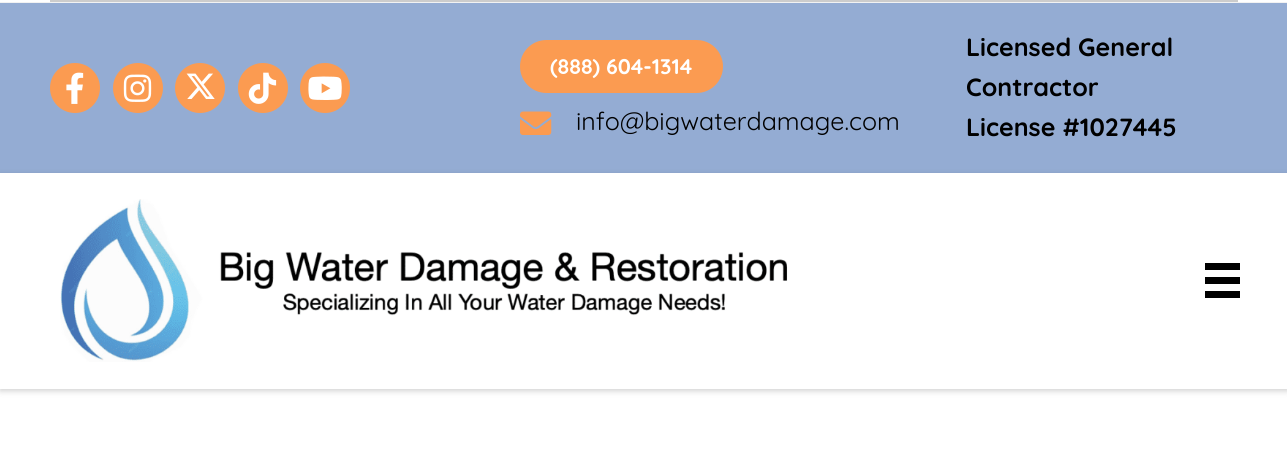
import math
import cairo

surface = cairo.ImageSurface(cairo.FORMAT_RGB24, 1287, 462)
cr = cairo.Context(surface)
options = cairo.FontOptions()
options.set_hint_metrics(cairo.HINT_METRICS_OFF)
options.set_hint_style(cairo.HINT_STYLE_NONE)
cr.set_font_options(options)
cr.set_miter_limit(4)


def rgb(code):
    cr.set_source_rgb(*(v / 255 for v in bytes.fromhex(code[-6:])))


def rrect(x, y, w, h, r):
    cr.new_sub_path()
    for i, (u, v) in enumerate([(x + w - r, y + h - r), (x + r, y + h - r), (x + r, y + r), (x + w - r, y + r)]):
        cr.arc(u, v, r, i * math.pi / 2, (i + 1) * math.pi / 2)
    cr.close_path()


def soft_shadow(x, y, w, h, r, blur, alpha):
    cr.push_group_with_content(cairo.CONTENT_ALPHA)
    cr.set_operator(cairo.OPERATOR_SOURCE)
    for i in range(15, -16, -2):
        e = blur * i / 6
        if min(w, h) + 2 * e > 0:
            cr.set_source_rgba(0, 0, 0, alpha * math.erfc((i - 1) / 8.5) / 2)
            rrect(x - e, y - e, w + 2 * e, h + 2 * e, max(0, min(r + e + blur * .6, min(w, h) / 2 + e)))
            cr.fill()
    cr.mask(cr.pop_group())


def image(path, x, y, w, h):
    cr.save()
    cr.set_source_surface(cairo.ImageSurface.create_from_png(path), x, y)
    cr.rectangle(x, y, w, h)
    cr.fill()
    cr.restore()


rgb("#f2f2f2")
cr.paint()
for x, y, w, h, color in [
    (0, 0, 1287, 2, "#ffffff"),
    (50, 0, 1188, 2, "#cccccc"),
    (0, 3, 1287, 170, "#94acd3"),
]:
    rgb(color)
    cr.rectangle(x, y, w, h)
    cr.fill()
rgb("#fb9b51")
cr.arc(75, 88, 25, 0, 2 * math.pi)
cr.fill()
image("img/1.png", 66, 72, 18, 32)
cr.arc(138, 88, 25, 0, 2 * math.pi)
cr.fill()
image("img/2.png", 123, 74, 29, 28)
cr.arc(200, 88, 25, 0, 2 * math.pi)
cr.fill()
image("img/3.png", 186, 73, 29, 26)
cr.arc(263, 88, 25, 0, 2 * math.pi)
cr.fill()
image("img/4.png", 248, 72, 29, 32)
cr.arc(325, 88, 25, 0, 2 * math.pi)
cr.fill()
image("img/5.png", 308, 76, 34, 24)
rrect(520, 40, 203, 53, 26.5)
cr.fill()
image("img/6.png", 520, 111, 32, 24)
rgb("#ffffff")
cr.rectangle(0, 389, 1287, 73)
cr.fill()
rgb("#000000")
soft_shadow(0, 175, 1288, 216, 0, 3, 0.18)
rgb("#ffffff")
cr.rectangle(0, 173, 1287, 216)
cr.fill()
image("img/7.png", 60, 199, 728, 163)
for x, y, w, h, color in [
    (1205, 263, 35, 7, "#000000"),
    (1205, 277, 35, 7, "#000000"),
    (1205, 291, 35, 7, "#000000"),
]:
    rgb(color)
    cr.rectangle(x, y, w, h)
    cr.fill()
cr.select_font_face("Quicksand", cairo.FONT_SLANT_NORMAL, cairo.FONT_WEIGHT_BOLD)
cr.set_font_size(21.25)
rgb("#ffffff")
cr.move_to(550, 74)
cr.show_text("(888) 604-1314")
cr.select_font_face("Quicksand")
cr.set_font_size(25)
rgb("#000000")
cr.move_to(576, 130)
cr.show_text("info@bigwaterdamage.com")
cr.select_font_face("Quicksand", cairo.FONT_SLANT_NORMAL, cairo.FONT_WEIGHT_BOLD)
for x, y, s in [
    (966, 56, "Licensed General"),
    (966, 96, "Contractor"),
    (966, 136, "License #1027445"),
]:
    cr.move_to(x, y)
    cr.show_text(s)
surface.write_to_png("page.png")
